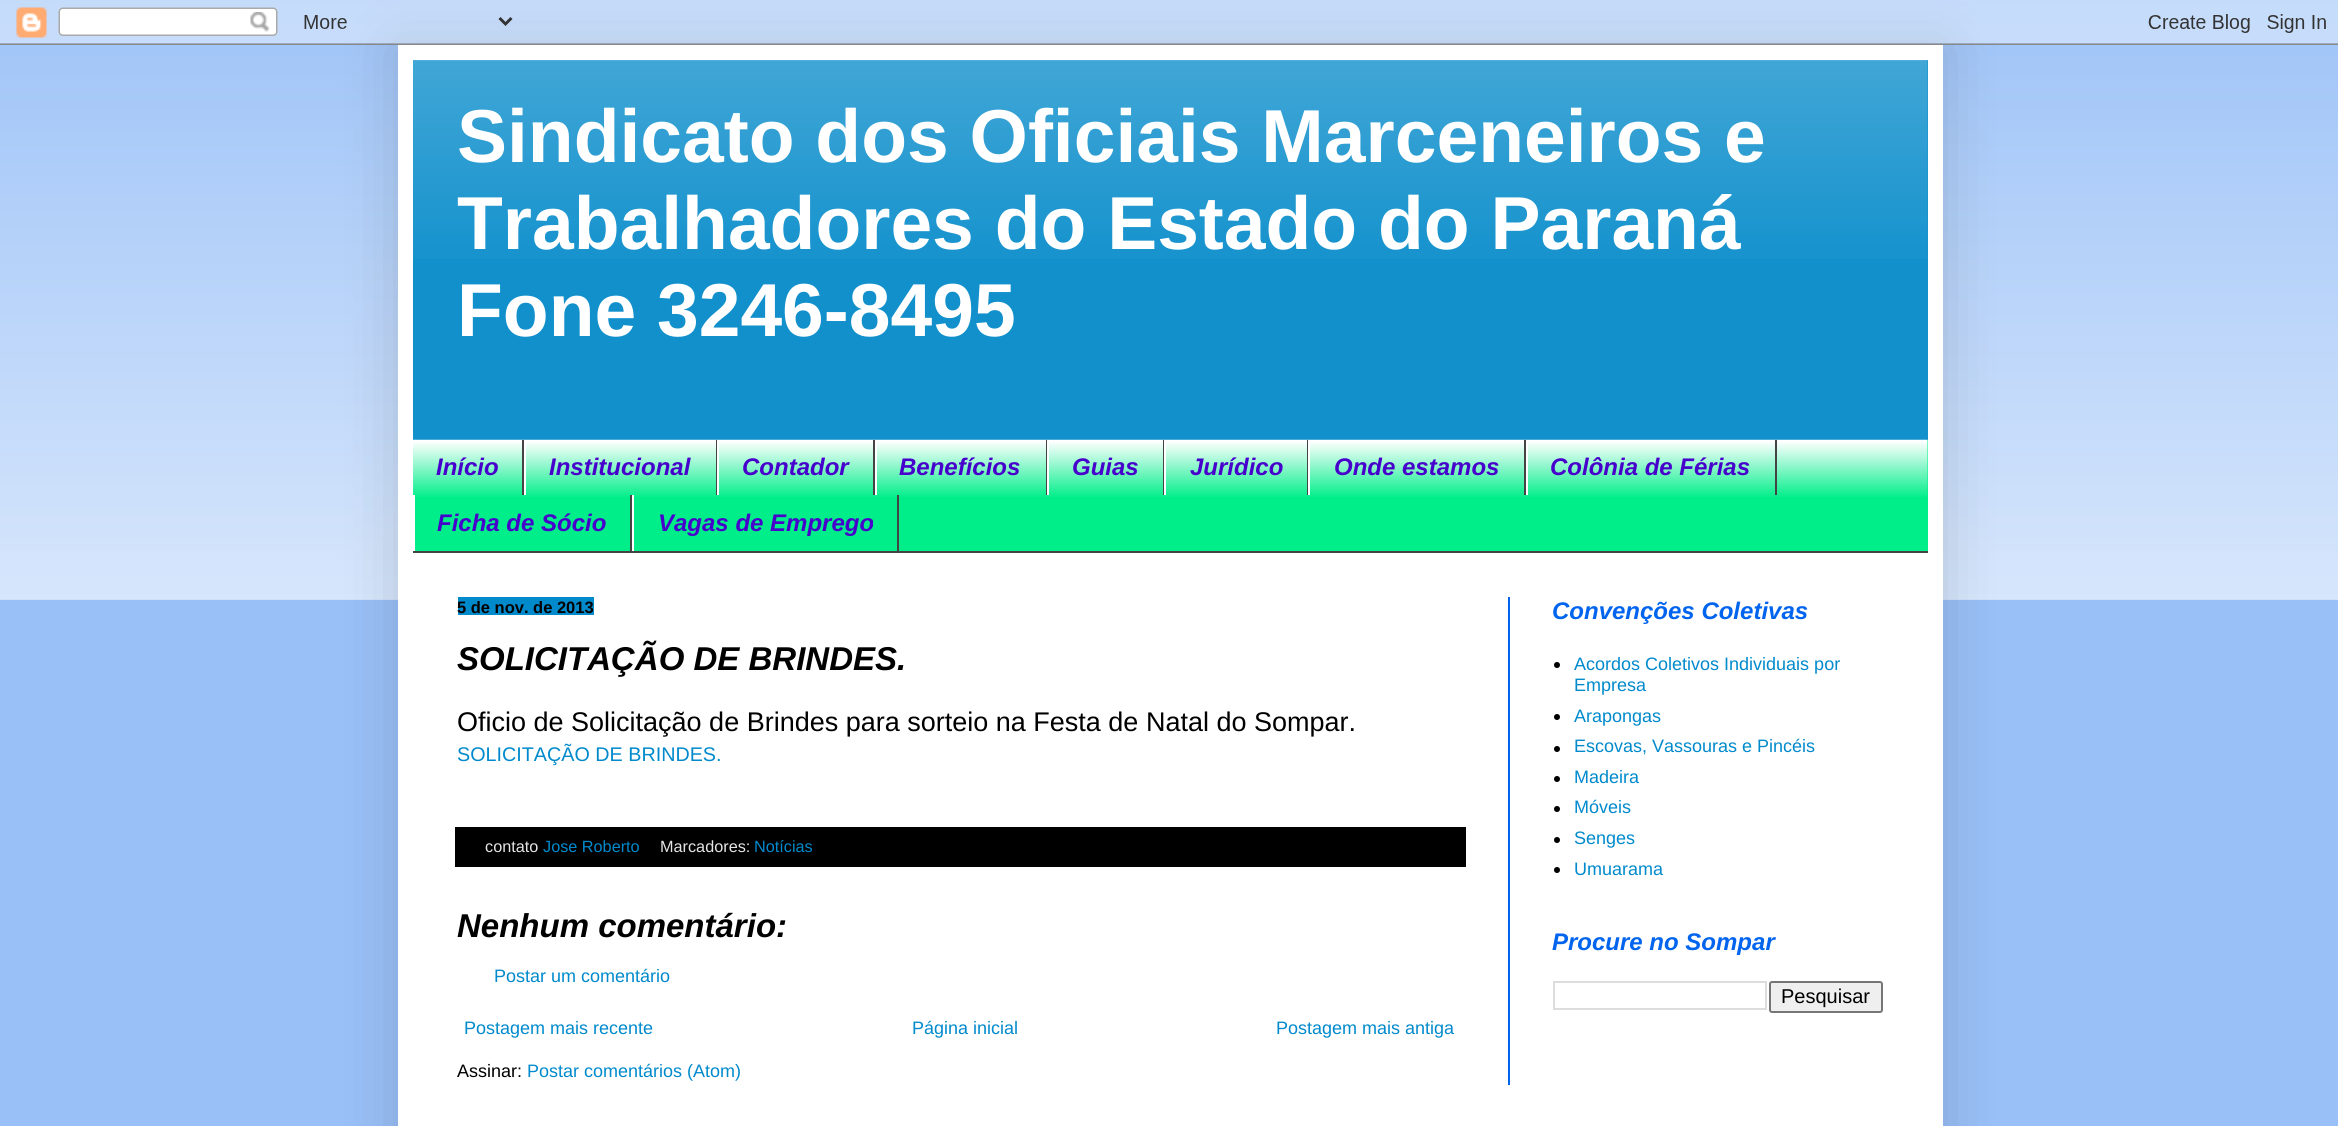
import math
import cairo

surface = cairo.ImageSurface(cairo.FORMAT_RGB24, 2338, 1126)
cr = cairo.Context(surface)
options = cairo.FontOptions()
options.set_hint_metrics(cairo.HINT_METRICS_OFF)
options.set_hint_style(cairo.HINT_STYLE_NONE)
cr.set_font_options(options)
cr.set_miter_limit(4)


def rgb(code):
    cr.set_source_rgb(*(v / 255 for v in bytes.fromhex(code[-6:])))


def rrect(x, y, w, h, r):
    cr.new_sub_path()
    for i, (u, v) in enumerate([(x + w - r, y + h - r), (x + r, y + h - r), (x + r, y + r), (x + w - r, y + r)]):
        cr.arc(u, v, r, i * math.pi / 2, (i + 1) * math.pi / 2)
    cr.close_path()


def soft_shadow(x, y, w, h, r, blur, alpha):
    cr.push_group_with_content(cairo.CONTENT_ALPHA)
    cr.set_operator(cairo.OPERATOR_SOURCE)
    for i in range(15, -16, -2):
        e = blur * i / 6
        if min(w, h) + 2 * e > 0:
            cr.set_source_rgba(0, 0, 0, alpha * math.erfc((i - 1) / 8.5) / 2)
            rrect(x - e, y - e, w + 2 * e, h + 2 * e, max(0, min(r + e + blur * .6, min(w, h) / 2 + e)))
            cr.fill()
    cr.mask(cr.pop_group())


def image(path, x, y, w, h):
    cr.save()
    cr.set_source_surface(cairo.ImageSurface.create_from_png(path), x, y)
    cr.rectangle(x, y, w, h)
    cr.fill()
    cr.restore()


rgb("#99c0f7")
cr.paint()
image("img/1.png", 0, 0, 2338, 600)
rgb("#000000")
soft_shadow(398, 45, 1545, 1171, 0, 30, 0.15)
image("img/2.png", 0, 0, 2338, 45)
rgb("#ffffff")
cr.rectangle(398, 45, 1545, 1081)
cr.fill()
rgb("#1190cc")
cr.rectangle(413, 60, 1515, 380)
cr.fill()
image("img/3.png", 413, 60, 1515, 199)
rgb("#00ee8a")
cr.rectangle(413, 440, 1515, 111)
cr.fill()
image("img/4.png", 413, 439, 1515, 58)
for x, y, w, h, color in [
    (413, 551, 1515, 2, "#444444"),
    (522, 440, 2, 55, "#444444"),
    (716, 440, 1, 55, "#444444"),
    (524, 440, 2, 55, "#ffffff"),
    (873, 440, 2, 55, "#444444"),
    (717, 440, 2, 55, "#ffffff"),
    (1046, 440, 1, 55, "#444444"),
    (875, 440, 2, 55, "#ffffff"),
    (1163, 440, 1, 55, "#444444"),
    (1047, 440, 2, 55, "#ffffff"),
    (1307, 440, 1, 55, "#444444"),
    (1164, 440, 2, 55, "#ffffff"),
    (1524, 440, 2, 55, "#444444"),
    (1308, 440, 2, 55, "#ffffff"),
    (1775, 440, 2, 55, "#444444"),
    (1526, 440, 2, 55, "#ffffff"),
    (630, 495, 2, 56, "#444444"),
    (413, 495, 2, 56, "#ffffff"),
    (897, 495, 2, 56, "#444444"),
    (632, 495, 2, 56, "#ffffff"),
    (1508, 597, 2, 488, "#0064ee"),
    (458, 597, 136, 18, "#008acc"),
    (455, 827, 1011, 40, "#000000"),
]:
    rgb(color)
    cr.rectangle(x, y, w, h)
    cr.fill()
cr.arc(1557, 665, 3, 0, 2 * math.pi)
cr.fill()
cr.arc(1557, 717, 3, 0, 2 * math.pi)
cr.fill()
cr.arc(1557, 749, 3, 0, 2 * math.pi)
cr.fill()
cr.arc(1557, 779, 3, 0, 2 * math.pi)
cr.fill()
cr.arc(1557, 809, 3, 0, 2 * math.pi)
cr.fill()
cr.arc(1557, 840, 3, 0, 2 * math.pi)
cr.fill()
cr.arc(1557, 870, 3, 0, 2 * math.pi)
cr.fill()
cr.rectangle(1554, 982, 212, 27)
rgb("#dddddd")
cr.stroke()
rgb("#efefef")
rrect(1770, 982, 112, 30, 2)
cr.fill_preserve()
rgb("#767676")
cr.stroke()
cr.select_font_face("Liberation Sans", cairo.FONT_SLANT_NORMAL, cairo.FONT_WEIGHT_BOLD)
cr.set_font_size(75)
rgb("#ffffff")
for x, y, s in [
    (457, 162, "Sindicato dos Oficiais Marceneiros e"),
    (457, 249, "Trabalhadores do Estado do Paraná"),
    (457, 336, "Fone 3246-8495"),
]:
    cr.move_to(x, y)
    cr.show_text(s)
cr.select_font_face("Liberation Sans", cairo.FONT_SLANT_ITALIC, cairo.FONT_WEIGHT_BOLD)
cr.set_font_size(24)
rgb("#4700cc")
for x, y, s in [
    (436, 475, "Início"),
    (549, 475, "Institucional"),
    (742, 475, "Contador"),
    (899, 475, "Benefícios"),
    (1072, 475, "Guias"),
    (1190, 475, "Jurídico"),
    (1334, 475, "Onde estamos"),
    (1550, 475, "Colônia de Férias"),
    (437, 531, "Ficha de Sócio"),
    (658, 531, "Vagas de Emprego"),
]:
    cr.move_to(x, y)
    cr.show_text(s)
cr.select_font_face("Liberation Sans", cairo.FONT_SLANT_NORMAL, cairo.FONT_WEIGHT_BOLD)
cr.set_font_size(16.5)
rgb("#000000")
cr.move_to(457, 613)
cr.show_text("5 de nov. de 2013")
cr.select_font_face("Liberation Sans", cairo.FONT_SLANT_ITALIC, cairo.FONT_WEIGHT_BOLD)
cr.set_font_size(33)
cr.move_to(457, 670)
cr.show_text("SOLICITAÇÃO DE BRINDES.")
cr.select_font_face("Liberation Sans")
cr.set_font_size(27)
cr.move_to(457, 731)
cr.show_text("Oficio de Solicitação de Brindes para sorteio na Festa de Natal do Sompar.")
cr.set_font_size(19.75)
rgb("#008acc")
cr.move_to(457, 761)
cr.show_text("SOLICITAÇÃO DE BRINDES.")
cr.set_font_size(16.25)
rgb("#e5e5e5")
cr.move_to(485, 852)
cr.show_text("contato")
rgb("#008acc")
cr.move_to(543, 852)
cr.show_text("Jose Roberto")
rgb("#e5e5e5")
cr.move_to(660, 852)
cr.show_text("Marcadores:")
rgb("#008acc")
cr.move_to(754, 852)
cr.show_text("Notícias")
cr.select_font_face("Liberation Sans", cairo.FONT_SLANT_ITALIC, cairo.FONT_WEIGHT_BOLD)
cr.set_font_size(33)
rgb("#000000")
cr.move_to(457, 937)
cr.show_text("Nenhum comentário:")
cr.select_font_face("Liberation Sans")
cr.set_font_size(18)
rgb("#008acc")
for x, y, s in [
    (494, 982, "Postar um comentário"),
    (464, 1034, "Postagem mais recente"),
    (912, 1034, "Página inicial"),
    (1276, 1034, "Postagem mais antiga"),
]:
    cr.move_to(x, y)
    cr.show_text(s)
rgb("#000000")
cr.move_to(457, 1077)
cr.show_text("Assinar:")
rgb("#008acc")
cr.move_to(527, 1077)
cr.show_text("Postar comentários (Atom)")
cr.select_font_face("Liberation Sans", cairo.FONT_SLANT_ITALIC, cairo.FONT_WEIGHT_BOLD)
cr.set_font_size(24)
rgb("#0064ee")
cr.move_to(1552, 619)
cr.show_text("Convenções Coletivas")
cr.select_font_face("Liberation Sans")
cr.set_font_size(18)
rgb("#008acc")
for x, y, s in [
    (1574, 670, "Acordos Coletivos Individuais por"),
    (1574, 691, "Empresa"),
    (1574, 722, "Arapongas"),
    (1574, 752, "Escovas, Vassouras e Pincéis"),
    (1574, 783, "Madeira"),
    (1574, 813, "Móveis"),
    (1574, 844, "Senges"),
    (1574, 875, "Umuarama"),
]:
    cr.move_to(x, y)
    cr.show_text(s)
cr.select_font_face("Liberation Sans", cairo.FONT_SLANT_ITALIC, cairo.FONT_WEIGHT_BOLD)
cr.set_font_size(24)
rgb("#0064ee")
cr.move_to(1552, 950)
cr.show_text("Procure no Sompar")
cr.select_font_face("Liberation Sans")
cr.set_font_size(20)
rgb("#000000")
cr.move_to(1781, 1003)
cr.show_text("Pesquisar")
surface.write_to_png("page.png")
